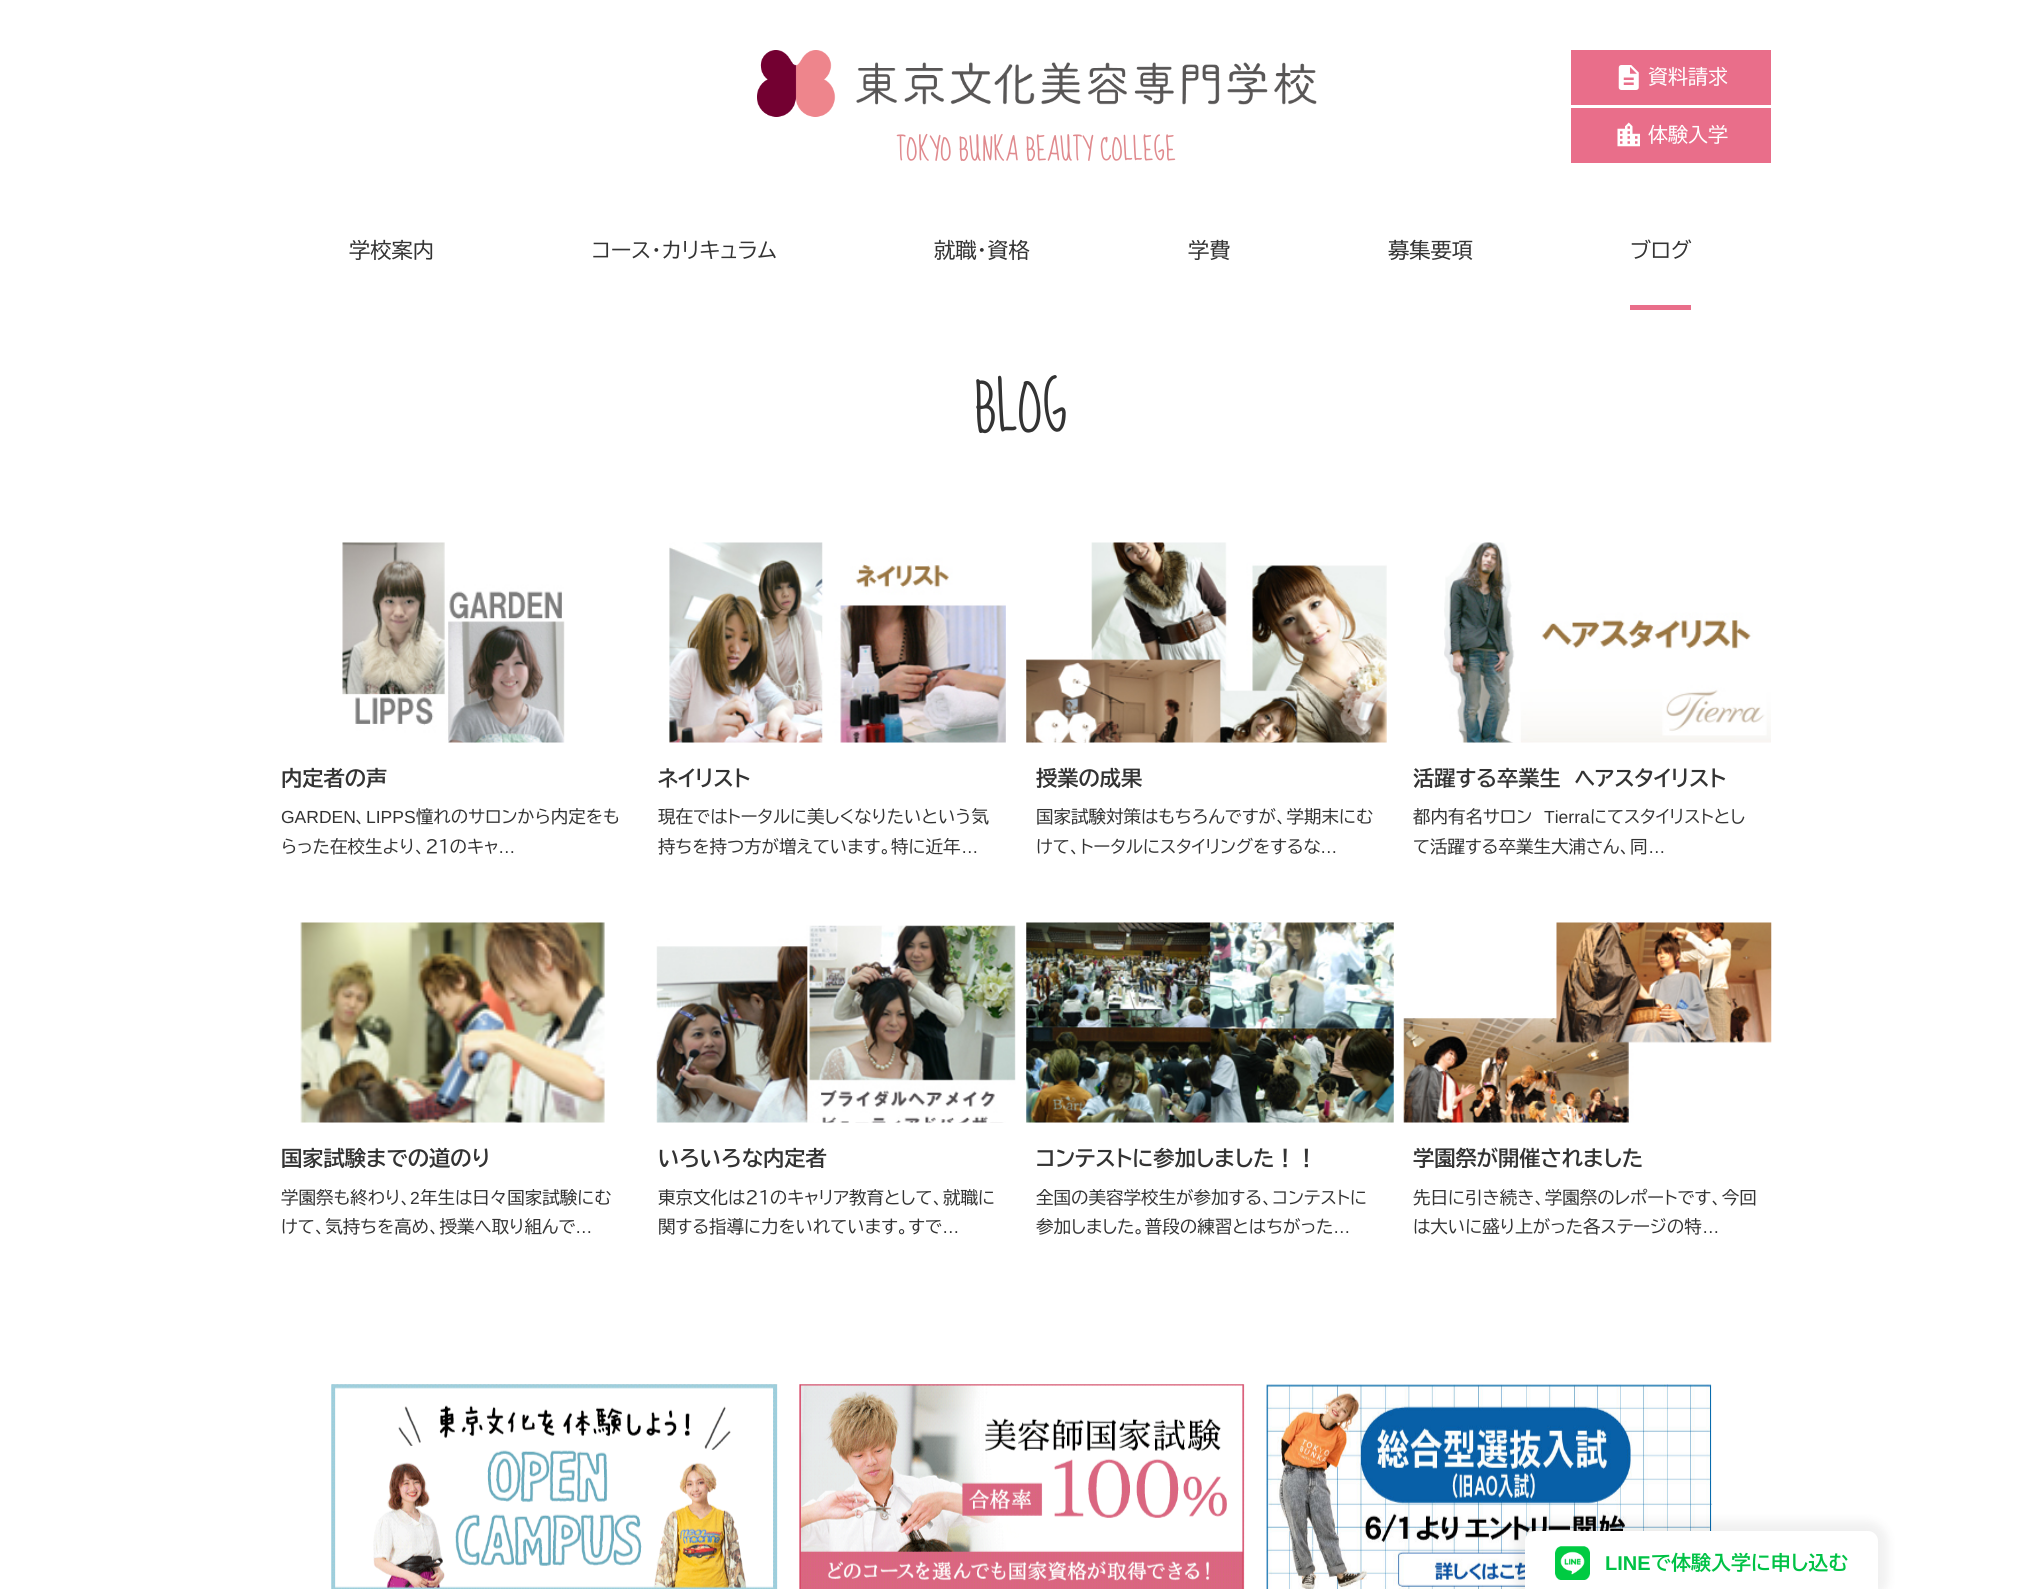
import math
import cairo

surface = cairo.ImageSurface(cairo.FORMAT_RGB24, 2041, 1589)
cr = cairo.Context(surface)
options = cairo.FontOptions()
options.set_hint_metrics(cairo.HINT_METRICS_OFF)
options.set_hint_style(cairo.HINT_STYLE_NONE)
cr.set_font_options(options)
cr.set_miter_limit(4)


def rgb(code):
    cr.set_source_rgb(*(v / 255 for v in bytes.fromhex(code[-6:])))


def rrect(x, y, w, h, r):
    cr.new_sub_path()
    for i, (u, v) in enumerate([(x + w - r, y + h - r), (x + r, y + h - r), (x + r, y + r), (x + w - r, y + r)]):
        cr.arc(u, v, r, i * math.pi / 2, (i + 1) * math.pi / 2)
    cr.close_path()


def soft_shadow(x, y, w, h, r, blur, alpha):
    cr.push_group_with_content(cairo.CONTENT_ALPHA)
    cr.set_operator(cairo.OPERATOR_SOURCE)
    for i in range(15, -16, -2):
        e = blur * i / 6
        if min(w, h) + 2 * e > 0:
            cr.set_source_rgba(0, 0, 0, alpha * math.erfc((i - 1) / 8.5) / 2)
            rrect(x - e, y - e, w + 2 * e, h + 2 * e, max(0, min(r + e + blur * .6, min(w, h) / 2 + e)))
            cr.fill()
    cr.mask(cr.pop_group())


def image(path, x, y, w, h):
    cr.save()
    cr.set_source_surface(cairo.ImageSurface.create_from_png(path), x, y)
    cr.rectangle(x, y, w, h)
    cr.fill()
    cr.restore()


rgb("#ffffff")
cr.paint()
rgb("#e96e8a")
cr.rectangle(1571, 50, 200, 55)
cr.fill()
image("img/1.png", 1618, 65, 21, 25)
cr.rectangle(1571, 108, 200, 55)
cr.fill()
image("img/2.png", 1617, 122, 23, 25)
image("img/3.png", 757, 50, 560, 67)
cr.save()
cr.rectangle(1630, 204, 61, 106)
cr.clip()
cr.set_fill_rule(cairo.FILL_RULE_EVEN_ODD)
cr.new_path()
cr.move_to(1506, 80)
cr.line_to(1815, 80)
cr.line_to(1815, 434)
cr.line_to(1506, 434)
cr.close_path()
cr.move_to(1630, 191)
cr.line_to(1691, 191)
cr.curve_to(1693, 191, 1695, 193, 1695, 195)
cr.line_to(1695, 301)
cr.curve_to(1695, 303, 1693, 305, 1691, 305)
cr.line_to(1630, 305)
cr.curve_to(1628, 305, 1626, 303, 1626, 301)
cr.line_to(1626, 195)
cr.curve_to(1626, 193, 1628, 191, 1630, 191)
cr.close_path()
cr.fill()
cr.restore()
image("img/4.png", 342, 542, 223, 201)
image("img/5.png", 669, 542, 337, 201)
image("img/6.png", 1026, 542, 361, 201)
image("img/7.png", 1444, 542, 327, 201)
image("img/8.png", 300, 922, 305, 201)
image("img/9.png", 656, 925, 360, 198)
image("img/10.png", 1026, 922, 368, 201)
image("img/11.png", 1403, 922, 369, 201)
image("img/12.png", 331, 1384, 447, 205)
image("img/13.png", 799, 1384, 446, 205)
image("img/14.png", 1266, 1384, 447, 205)
rgb("#000000")
soft_shadow(1515, 1521, 373, 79, 20, 5, 0.06)
rgb("#ffffff")
cr.new_path()
cr.move_to(1535, 1531)
cr.line_to(1868, 1531)
cr.curve_to(1873.5, 1531, 1878, 1535.5, 1878, 1541)
cr.line_to(1878, 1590)
cr.line_to(1525, 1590)
cr.line_to(1525, 1541)
cr.curve_to(1525, 1535.5, 1529.5, 1531, 1535, 1531)
cr.close_path()
cr.fill()
image("img/15.png", 1555, 1546, 35, 34)
cr.select_font_face("BIZ UDPGothic")
cr.set_font_size(20)
cr.move_to(1648, 84)
cr.show_text("資料請求")
cr.move_to(1648, 142)
cr.show_text("体験入学")
cr.select_font_face("Sue Ellen Francisco")
cr.set_font_size(27.5)
rgb("#e08a8e")
cr.move_to(896, 160)
cr.show_text("TOKYO BUNKA BEAUTY COLLEGE")
cr.select_font_face("BIZ UDPGothic")
cr.set_font_size(21.25)
rgb("#333333")
for x, y, s in [
    (349, 258, "学校案内"),
    (592, 258, "コース・カリキュラム"),
    (934, 258, "就職・資格"),
    (1188, 258, "学費"),
    (1388, 258, "募集要項"),
    (1630, 258, "ブログ"),
]:
    cr.move_to(x, y)
    cr.show_text(s)
cr.select_font_face("Sue Ellen Francisco")
cr.set_font_size(60)
cr.move_to(974, 431)
cr.show_text("BLOG")
cr.select_font_face("BIZ UDPGothic", cairo.FONT_SLANT_NORMAL, cairo.FONT_WEIGHT_BOLD)
cr.set_font_size(21.25)
cr.move_to(281, 786)
cr.show_text("内定者の声")
cr.select_font_face("Liberation Sans")
cr.set_font_size(17.5)
cr.move_to(281, 823)
cr.show_text("GARDEN")
cr.select_font_face("BIZ UDPGothic")
cr.move_to(355, 823)
cr.show_text("、")
cr.select_font_face("Liberation Sans")
cr.move_to(366, 823)
cr.show_text("LIPPS")
cr.select_font_face("BIZ UDPGothic")
cr.move_to(416, 823)
cr.show_text("憧れのサロンから内定をも")
cr.move_to(281, 853)
cr.show_text("らった在校生より、２１のキャ")
cr.select_font_face("Liberation Sans")
cr.move_to(498, 853)
cr.show_text("…")
cr.select_font_face("BIZ UDPGothic", cairo.FONT_SLANT_NORMAL, cairo.FONT_WEIGHT_BOLD)
cr.set_font_size(21.25)
cr.move_to(658, 786)
cr.show_text("ネイリスト")
cr.select_font_face("BIZ UDPGothic")
cr.set_font_size(17.5)
cr.move_to(658, 823)
cr.show_text("現在ではトータルに美しくなりたいという気")
cr.move_to(658, 853)
cr.show_text("持ちを持つ方が増えています。特に近年")
cr.select_font_face("Liberation Sans")
cr.move_to(961, 853)
cr.show_text("…")
cr.select_font_face("BIZ UDPGothic", cairo.FONT_SLANT_NORMAL, cairo.FONT_WEIGHT_BOLD)
cr.set_font_size(21.25)
cr.move_to(1036, 786)
cr.show_text("授業の成果")
cr.select_font_face("BIZ UDPGothic")
cr.set_font_size(17.5)
cr.move_to(1036, 823)
cr.show_text("国家試験対策はもちろんですが、学期末にむ")
cr.move_to(1036, 853)
cr.show_text("けて、トータルにスタイリングをするな")
cr.select_font_face("Liberation Sans")
cr.move_to(1320, 853)
cr.show_text("…")
cr.select_font_face("BIZ UDPGothic", cairo.FONT_SLANT_NORMAL, cairo.FONT_WEIGHT_BOLD)
cr.set_font_size(21.25)
cr.move_to(1413, 786)
cr.show_text("活躍する卒業生　ヘアスタイリスト")
cr.select_font_face("BIZ UDPGothic")
cr.set_font_size(17.5)
cr.move_to(1413, 823)
cr.show_text("都内有名サロン")
cr.select_font_face("Liberation Sans")
cr.move_to(1544, 823)
cr.show_text("Tierra")
cr.select_font_face("BIZ UDPGothic")
cr.move_to(1590, 823)
cr.show_text("にてスタイリストとし")
cr.move_to(1413, 853)
cr.show_text("て活躍する卒業生大浦さん、同")
cr.select_font_face("Liberation Sans")
cr.move_to(1648, 853)
cr.show_text("…")
cr.select_font_face("BIZ UDPGothic", cairo.FONT_SLANT_NORMAL, cairo.FONT_WEIGHT_BOLD)
cr.set_font_size(21.25)
cr.move_to(281, 1166)
cr.show_text("国家試験までの道のり")
cr.select_font_face("BIZ UDPGothic")
cr.set_font_size(17.5)
cr.move_to(281, 1204)
cr.show_text("学園祭も終わり、")
cr.select_font_face("Liberation Sans")
cr.move_to(410, 1204)
cr.show_text("2")
cr.select_font_face("BIZ UDPGothic")
cr.move_to(420, 1204)
cr.show_text("年生は日々国家試験にむ")
cr.move_to(281, 1233)
cr.show_text("けて、気持ちを高め、授業へ取り組んで")
cr.select_font_face("Liberation Sans")
cr.move_to(575, 1233)
cr.show_text("…")
cr.select_font_face("BIZ UDPGothic", cairo.FONT_SLANT_NORMAL, cairo.FONT_WEIGHT_BOLD)
cr.set_font_size(21.25)
cr.move_to(658, 1166)
cr.show_text("いろいろな内定者")
cr.select_font_face("BIZ UDPGothic")
cr.set_font_size(17.5)
cr.move_to(658, 1204)
cr.show_text("東京文化は２１のキャリア教育として、就職に")
cr.move_to(658, 1233)
cr.show_text("関する指導に力をいれています。すで")
cr.select_font_face("Liberation Sans")
cr.move_to(942, 1233)
cr.show_text("…")
cr.select_font_face("BIZ UDPGothic", cairo.FONT_SLANT_NORMAL, cairo.FONT_WEIGHT_BOLD)
cr.set_font_size(21.25)
cr.move_to(1036, 1166)
cr.show_text("コンテストに参加しました！！")
cr.select_font_face("BIZ UDPGothic")
cr.set_font_size(17.5)
cr.move_to(1036, 1204)
cr.show_text("全国の美容学校生が参加する、コンテストに")
cr.move_to(1036, 1233)
cr.show_text("参加しました。普段の練習とはちがった")
cr.select_font_face("Liberation Sans")
cr.move_to(1333, 1233)
cr.show_text("…")
cr.select_font_face("BIZ UDPGothic", cairo.FONT_SLANT_NORMAL, cairo.FONT_WEIGHT_BOLD)
cr.set_font_size(21.25)
cr.move_to(1413, 1166)
cr.show_text("学園祭が開催されました")
cr.select_font_face("BIZ UDPGothic")
cr.set_font_size(17.5)
cr.move_to(1413, 1204)
cr.show_text("先日に引き続き、学園祭のレポートです、今回")
cr.move_to(1413, 1233)
cr.show_text("は大いに盛り上がった各ステージの特")
cr.select_font_face("Liberation Sans")
cr.move_to(1702, 1233)
cr.show_text("…")
cr.select_font_face("Liberation Sans", cairo.FONT_SLANT_NORMAL, cairo.FONT_WEIGHT_BOLD)
cr.set_font_size(20)
rgb("#00c245")
cr.move_to(1605, 1570)
cr.show_text("LINE")
cr.select_font_face("BIZ UDPGothic", cairo.FONT_SLANT_NORMAL, cairo.FONT_WEIGHT_BOLD)
cr.move_to(1651, 1570)
cr.show_text("で体験入学に申し込む")
surface.write_to_png("page.png")
